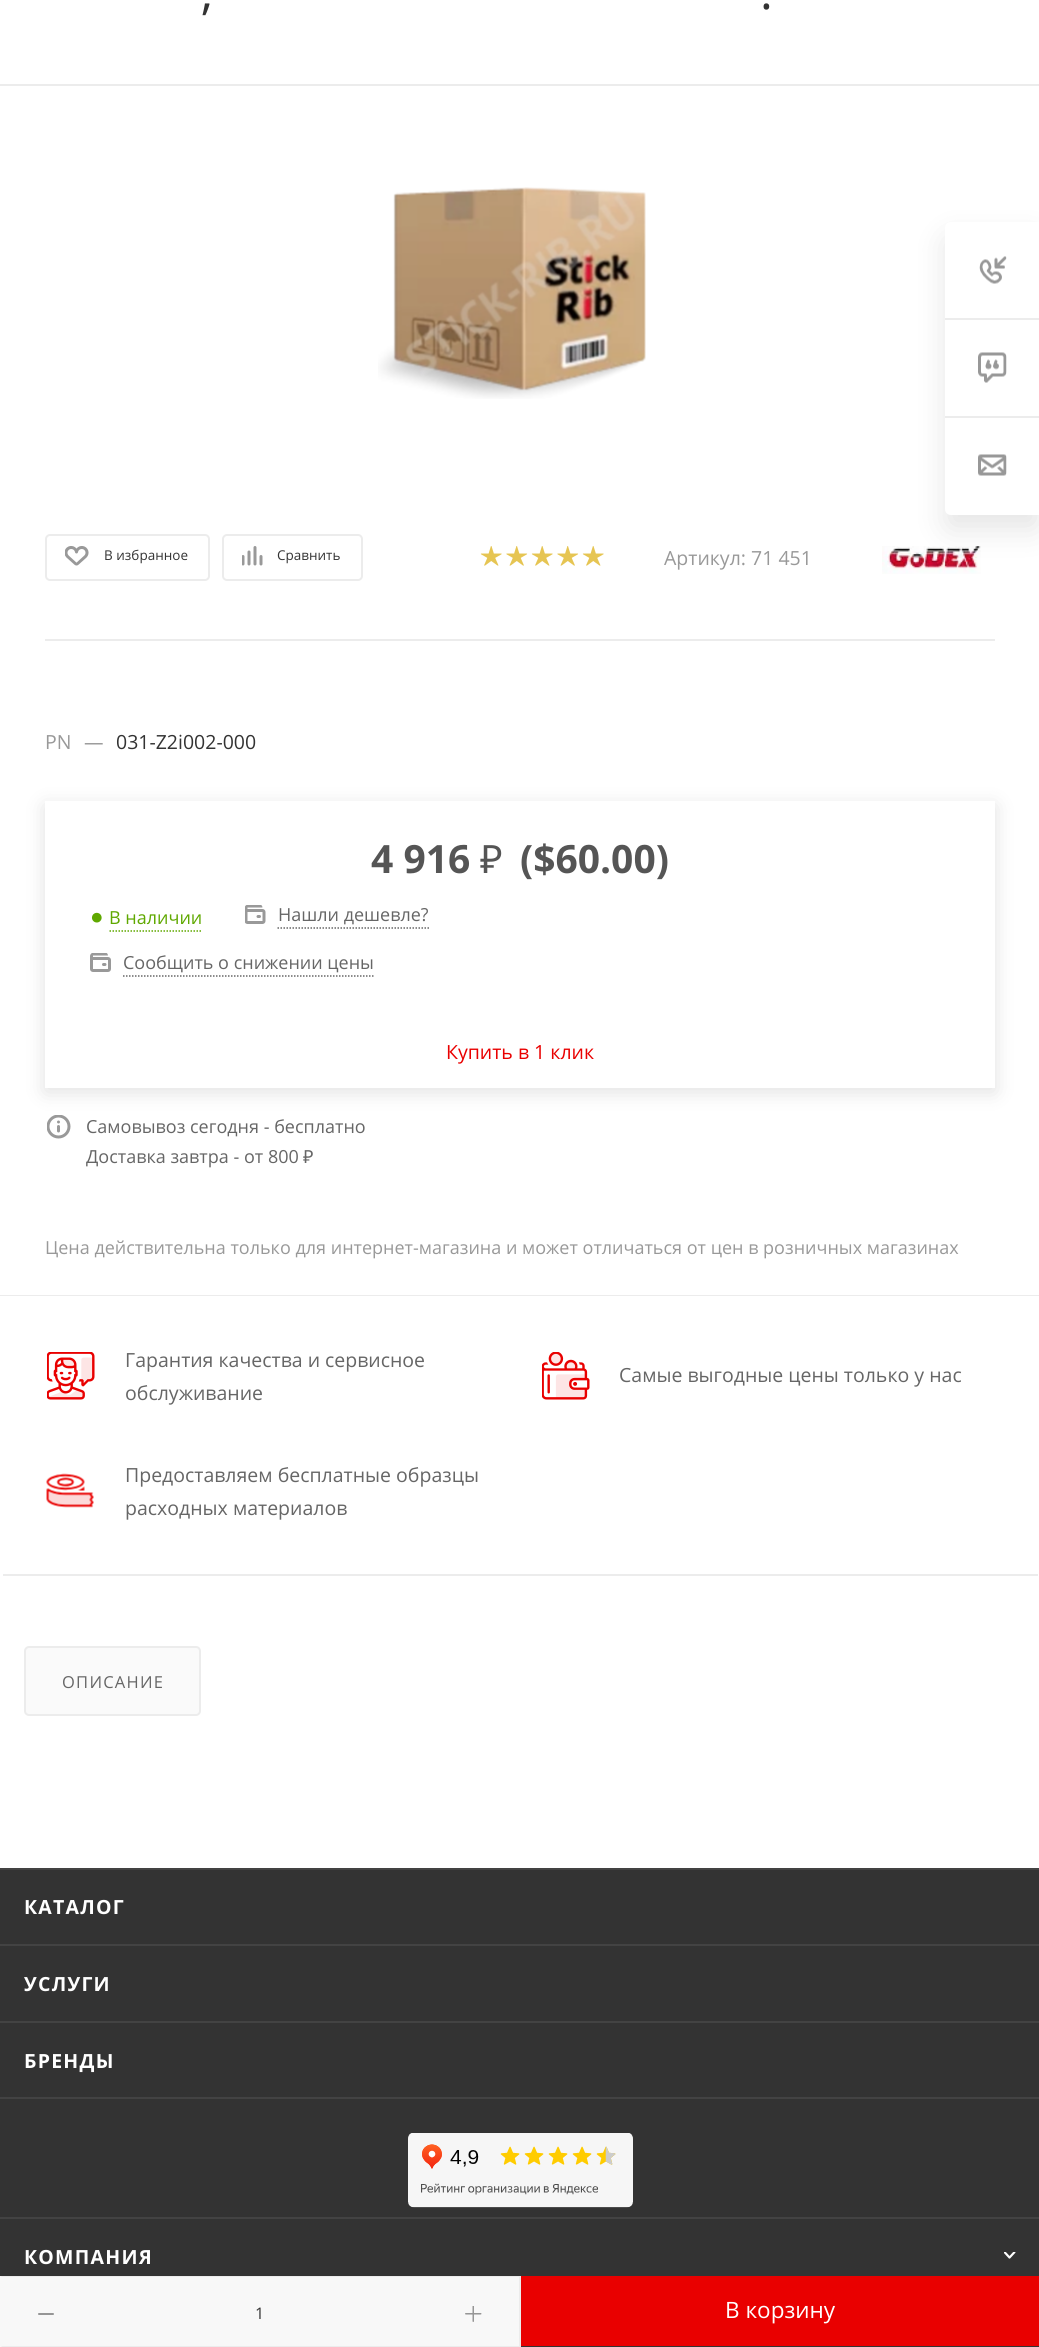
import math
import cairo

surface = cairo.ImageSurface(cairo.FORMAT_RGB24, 1039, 2347)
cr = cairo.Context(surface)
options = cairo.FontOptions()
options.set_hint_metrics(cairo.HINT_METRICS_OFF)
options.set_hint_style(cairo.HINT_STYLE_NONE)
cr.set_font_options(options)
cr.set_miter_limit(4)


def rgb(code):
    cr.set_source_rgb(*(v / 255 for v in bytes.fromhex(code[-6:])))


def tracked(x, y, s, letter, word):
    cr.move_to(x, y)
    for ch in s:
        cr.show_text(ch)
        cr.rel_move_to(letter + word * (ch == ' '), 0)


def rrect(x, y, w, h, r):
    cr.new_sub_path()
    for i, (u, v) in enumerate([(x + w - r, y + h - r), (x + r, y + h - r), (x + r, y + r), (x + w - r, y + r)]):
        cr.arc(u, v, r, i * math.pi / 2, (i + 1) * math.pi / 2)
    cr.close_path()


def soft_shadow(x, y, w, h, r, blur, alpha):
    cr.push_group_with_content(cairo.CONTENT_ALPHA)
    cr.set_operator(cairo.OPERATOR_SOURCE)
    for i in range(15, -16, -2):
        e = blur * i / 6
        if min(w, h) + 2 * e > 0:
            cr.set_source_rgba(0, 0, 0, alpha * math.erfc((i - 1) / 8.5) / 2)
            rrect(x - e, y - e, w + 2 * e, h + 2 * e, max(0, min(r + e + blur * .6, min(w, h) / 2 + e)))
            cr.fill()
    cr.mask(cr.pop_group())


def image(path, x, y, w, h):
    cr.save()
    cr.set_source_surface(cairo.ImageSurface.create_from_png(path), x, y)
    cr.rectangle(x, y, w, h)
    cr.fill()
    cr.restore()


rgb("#ffffff")
cr.paint()
rgb("#ececec")
cr.rectangle(0, 84, 1039, 2)
cr.fill()
cr.rectangle(0, 1295, 1039, 1)
cr.fill()
image("img/1.png", 378, 187, 268, 212)
cr.rectangle(45, 639, 950, 2)
cr.fill()
rrect(46, 535, 163, 45, 4)
cr.stroke()
image("img/2.png", 65, 546, 24, 20)
rrect(223, 535, 139, 45, 4)
cr.stroke()
image("img/3.png", 242, 546, 21, 20)
image("img/4.png", 480, 546, 22, 20)
image("img/5.png", 506, 546, 22, 20)
image("img/4.png", 531, 546, 22, 20)
image("img/5.png", 557, 546, 22, 20)
image("img/4.png", 582, 546, 22, 20)
image("img/6.png", 882, 546, 99, 28)
rgb("#000000")
soft_shadow(45, 806, 950, 286, 0, 10.5, 0.12)
rgb("#ffffff")
cr.rectangle(45, 801, 950, 287)
cr.fill()
cr.new_path()
cr.move_to(109.5, 931)
cr.line_to(202.5, 931)
rgb("#5fa800")
cr.set_line_width(1.5)
cr.set_dash([1.5, 1.5])
cr.stroke()
image("img/7.png", 245, 905, 21, 19)
cr.new_path()
cr.move_to(277.5, 928)
cr.line_to(429, 928)
rgb("#666666")
cr.stroke()
image("img/8.png", 90, 953, 21, 19)
cr.new_path()
cr.move_to(123, 976)
cr.line_to(373.5, 976)
cr.stroke()
rgb("#333333")
cr.rectangle(0, 1870, 1039, 477)
cr.fill()
rgb("#f8f8f8")
cr.rectangle(0, 2276, 519, 71)
cr.fill()
rgb("#ececec")
cr.new_path()
cr.move_to(0, 2276)
cr.line_to(520, 2276)
cr.line_to(519, 2277)
cr.line_to(2, 2277)
cr.close_path()
cr.fill()
cr.rectangle(519, 2276, 2, 71)
cr.fill()
cr.new_path()
cr.move_to(520, 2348)
cr.line_to(0, 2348)
cr.line_to(2, 2346)
cr.line_to(519, 2346)
cr.close_path()
cr.fill()
rgb("#969696")
rrect(38, 2313, 16, 2, 1)
cr.fill()
image("img/9.png", 465, 2306, 17, 16)
rgb("#e90000")
cr.rectangle(521, 2276, 518, 70)
cr.fill()
image("img/10.png", 47, 1115, 24, 24)
rgb("#ececec")
cr.rectangle(3, 1574, 1035, 2)
cr.fill()
image("img/11.png", 47, 1352, 48, 48)
image("img/12.png", 542, 1352, 48, 48)
image("img/13.png", 46, 1473, 48, 35)
rgb("#fafafa")
rrect(25, 1647, 175, 68, 4)
cr.fill_preserve()
rgb("#ececec")
cr.set_line_width(2)
cr.set_dash([])
cr.stroke()
rgb("#000000")
soft_shadow(945, 237, 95, 293, 6, 15, 0.1)
rgb("#ffffff")
cr.new_path()
cr.move_to(951, 222)
cr.line_to(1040, 222)
cr.line_to(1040, 515)
cr.line_to(951, 515)
cr.curve_to(947.5, 515, 945, 512.5, 945, 509)
cr.line_to(945, 228)
cr.curve_to(945, 224.5, 947.5, 222, 951, 222)
cr.close_path()
cr.fill()
rgb("#ececec")
cr.rectangle(945, 318, 94, 2)
cr.fill()
image("img/14.png", 979, 256, 28, 28)
cr.rectangle(945, 416, 94, 2)
cr.fill()
image("img/15.png", 978, 352, 29, 31)
image("img/16.png", 978, 454, 29, 22)
for x, y, w, h, color in [
    (0, 1868, 1039, 2, "#434343"),
    (0, 1944, 1039, 2, "#434343"),
    (0, 2021, 1039, 2, "#434343"),
    (0, 2097, 1039, 2, "#434343"),
]:
    rgb(color)
    cr.rectangle(x, y, w, h)
    cr.fill()
image("img/17.png", 408, 2133, 225, 75)
cr.rectangle(0, 2217, 1039, 2)
cr.fill()
image("img/18.png", 1004, 2252, 12, 7)
cr.select_font_face("Open Sans")
cr.set_font_size(48)
rgb("#333333")
cr.move_to(201, 9)
cr.show_text(",")
cr.move_to(760, 9)
cr.show_text(".")
cr.set_font_size(13.5)
cr.move_to(104, 560)
cr.show_text("В избранное")
cr.move_to(277, 560)
cr.show_text("Сравнить")
cr.set_font_size(19.5)
rgb("#999999")
for x, y, s in [
    (664, 565, "Артикул: 71 451"),
    (45, 749, "PN"),
    (84, 749, "—"),
]:
    cr.move_to(x, y)
    cr.show_text(s)
rgb("#333333")
cr.move_to(116, 749)
cr.show_text("031-Z2i002-000")
cr.select_font_face("Open Sans", cairo.FONT_SLANT_NORMAL, cairo.FONT_WEIGHT_BOLD)
cr.set_font_size(39)
rgb("#555555")
cr.move_to(371, 873)
cr.show_text("4 916")
cr.select_font_face("Noto Sans")
cr.move_to(480, 873)
cr.show_text("₽")
cr.select_font_face("Open Sans", cairo.FONT_SLANT_NORMAL, cairo.FONT_WEIGHT_BOLD)
cr.move_to(520, 873)
cr.show_text("($60.00)")
cr.select_font_face("Liberation Sans")
cr.set_font_size(22.5)
rgb("#5fa800")
cr.move_to(90, 924)
cr.show_text("●")
cr.select_font_face("Open Sans")
cr.set_font_size(18)
cr.move_to(109, 924)
cr.show_text("В наличии")
rgb("#666666")
cr.move_to(278, 921)
cr.show_text("Нашли дешевле?")
cr.move_to(123, 969)
cr.show_text("Сообщить о снижении цены")
cr.set_font_size(19.5)
rgb("#e90000")
cr.move_to(446, 1059)
cr.show_text("Купить в 1 клик")
cr.set_font_size(16)
rgb("#333333")
cr.move_to(255, 2319)
cr.show_text("1")
cr.set_font_size(22.5)
rgb("#ffffff")
cr.move_to(725, 2318)
cr.show_text("В корзину")
cr.set_font_size(18)
rgb("#666666")
cr.move_to(86, 1133)
cr.show_text("Самовывоз сегодня - бесплатно")
cr.move_to(86, 1163)
cr.show_text("Доставка завтра - от 800")
cr.select_font_face("Noto Sans")
cr.move_to(303, 1163)
cr.show_text("₽")
cr.select_font_face("Open Sans")
rgb("#999999")
cr.move_to(45, 1254)
cr.show_text("Цена действительна только для интернет-магазина и может отличаться от цен в розничных магазинах")
cr.set_font_size(19.5)
rgb("#666666")
for x, y, s in [
    (125, 1367, "Гарантия качества и сервисное"),
    (125, 1400, "обслуживание"),
    (619, 1382, "Самые выгодные цены только у нас"),
    (125, 1482, "Предоставляем бесплатные образцы"),
    (125, 1515, "расходных материалов"),
]:
    cr.move_to(x, y)
    cr.show_text(s)
cr.set_font_size(16.5)
tracked(62, 1688, "ОПИСАНИЕ", 1.25, 0)
cr.select_font_face("Open Sans", cairo.FONT_SLANT_NORMAL, cairo.FONT_WEIGHT_BOLD)
cr.set_font_size(19.5)
rgb("#ffffff")
for x, y, s in [
    (24, 1914, "КАТАЛОГ"),
    (24, 1991, "УСЛУГИ"),
    (24, 2068, "БРЕНДЫ"),
    (24, 2264, "КОМПАНИЯ"),
]:
    tracked(x, y, s, 1.25, 0)
surface.write_to_png("page.png")
